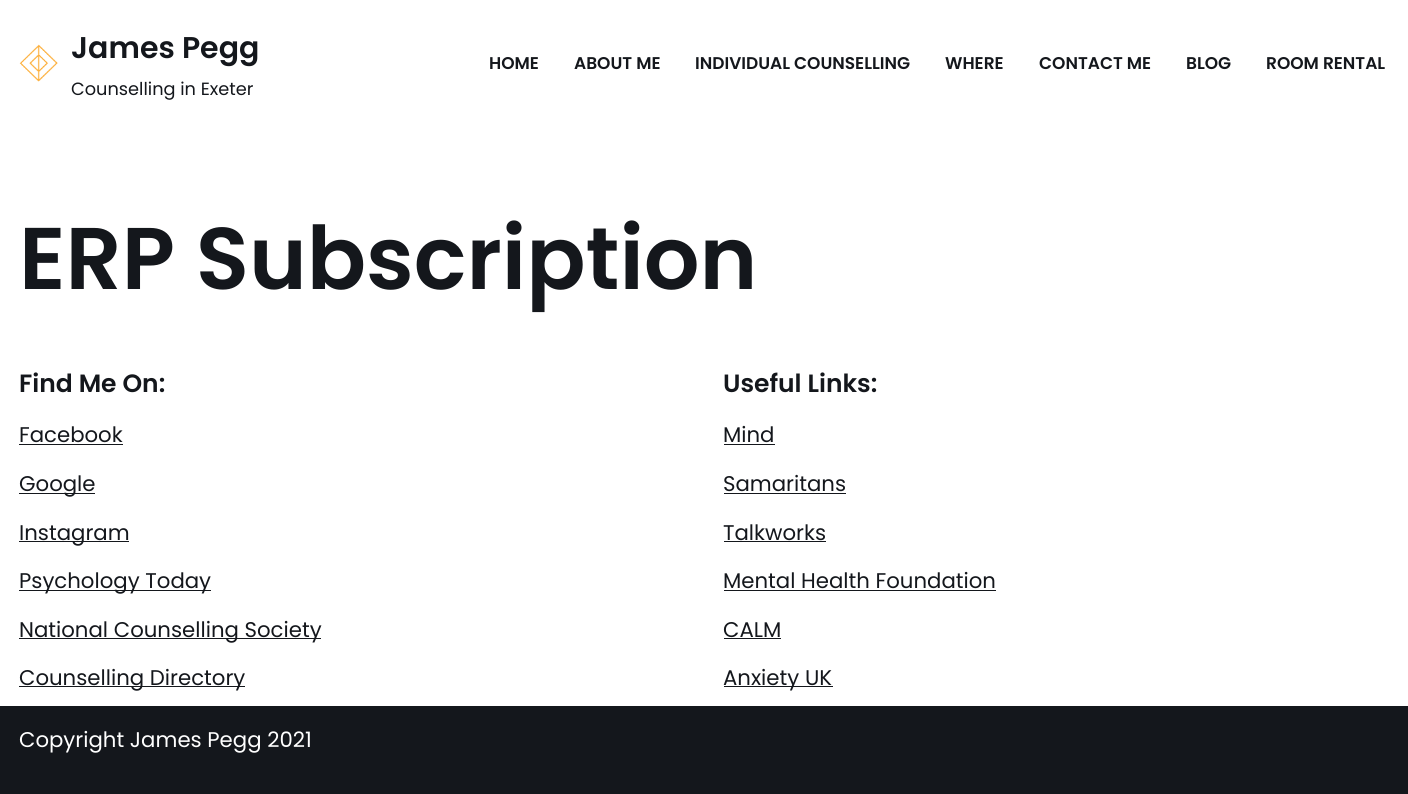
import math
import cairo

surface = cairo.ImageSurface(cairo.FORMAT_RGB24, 1408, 794)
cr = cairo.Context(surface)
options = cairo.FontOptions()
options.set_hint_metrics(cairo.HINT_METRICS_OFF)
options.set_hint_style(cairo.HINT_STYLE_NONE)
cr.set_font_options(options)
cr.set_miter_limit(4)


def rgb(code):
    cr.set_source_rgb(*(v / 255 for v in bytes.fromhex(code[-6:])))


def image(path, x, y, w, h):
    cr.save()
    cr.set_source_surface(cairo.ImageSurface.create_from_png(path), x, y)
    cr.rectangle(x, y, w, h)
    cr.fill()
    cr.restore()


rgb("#ffffff")
cr.paint()
image("img/1.png", 19, 44, 39, 38)
for x, y, w, h, color in [
    (19, 444, 104, 1, "#14171c"),
    (19, 493, 76, 1, "#14171c"),
    (19, 541, 110, 1, "#14171c"),
    (19, 590, 192, 1, "#14171c"),
    (19, 638, 302, 1, "#14171c"),
    (19, 686, 226, 1, "#14171c"),
    (724, 444, 51, 1, "#14171c"),
    (724, 493, 122, 1, "#14171c"),
    (724, 541, 102, 1, "#14171c"),
    (724, 590, 272, 1, "#14171c"),
    (724, 638, 57, 1, "#14171c"),
    (724, 686, 109, 1, "#14171c"),
    (0, 706, 1408, 88, "#14171c"),
]:
    rgb(color)
    cr.rectangle(x, y, w, h)
    cr.fill()
cr.select_font_face("Poppins SemiBold")
cr.set_font_size(30)
cr.move_to(71, 58)
cr.show_text("James Pegg")
cr.select_font_face("Poppins")
cr.set_font_size(17.75)
cr.move_to(71, 95)
cr.show_text("Counselling in Exeter")
cr.select_font_face("Poppins SemiBold")
cr.set_font_size(17)
for x, y, s in [
    (489, 69, "HOME"),
    (574, 69, "ABOUT ME"),
    (695, 69, "INDIVIDUAL COUNSELLING"),
    (945, 69, "WHERE"),
    (1039, 69, "CONTACT ME"),
    (1186, 69, "BLOG"),
    (1266, 69, "ROOM RENTAL"),
]:
    cr.move_to(x, y)
    cr.show_text(s)
cr.set_font_size(87.5)
cr.move_to(19, 289)
cr.show_text("ERP Subscription")
cr.set_font_size(25)
cr.move_to(19, 392)
cr.show_text("Find Me On:")
cr.select_font_face("Poppins")
cr.set_font_size(21.25)
for x, y, s in [
    (19, 442, "Facebook"),
    (19, 491, "Google"),
    (19, 540, "Instagram"),
    (19, 588, "Psychology Today"),
    (19, 637, "National Counselling Society"),
    (19, 685, "Counselling Directory"),
]:
    cr.move_to(x, y)
    cr.show_text(s)
cr.select_font_face("Poppins SemiBold")
cr.set_font_size(25)
cr.move_to(723, 392)
cr.show_text("Useful Links:")
cr.select_font_face("Poppins")
cr.set_font_size(21.25)
for x, y, s in [
    (723, 442, "Mind"),
    (723, 491, "Samaritans"),
    (723, 540, "Talkworks"),
    (723, 588, "Mental Health Foundation"),
    (723, 637, "CALM"),
    (723, 685, "Anxiety UK"),
]:
    cr.move_to(x, y)
    cr.show_text(s)
rgb("#ffffff")
cr.move_to(19, 747)
cr.show_text("Copyright James Pegg 2021")
surface.write_to_png("page.png")
